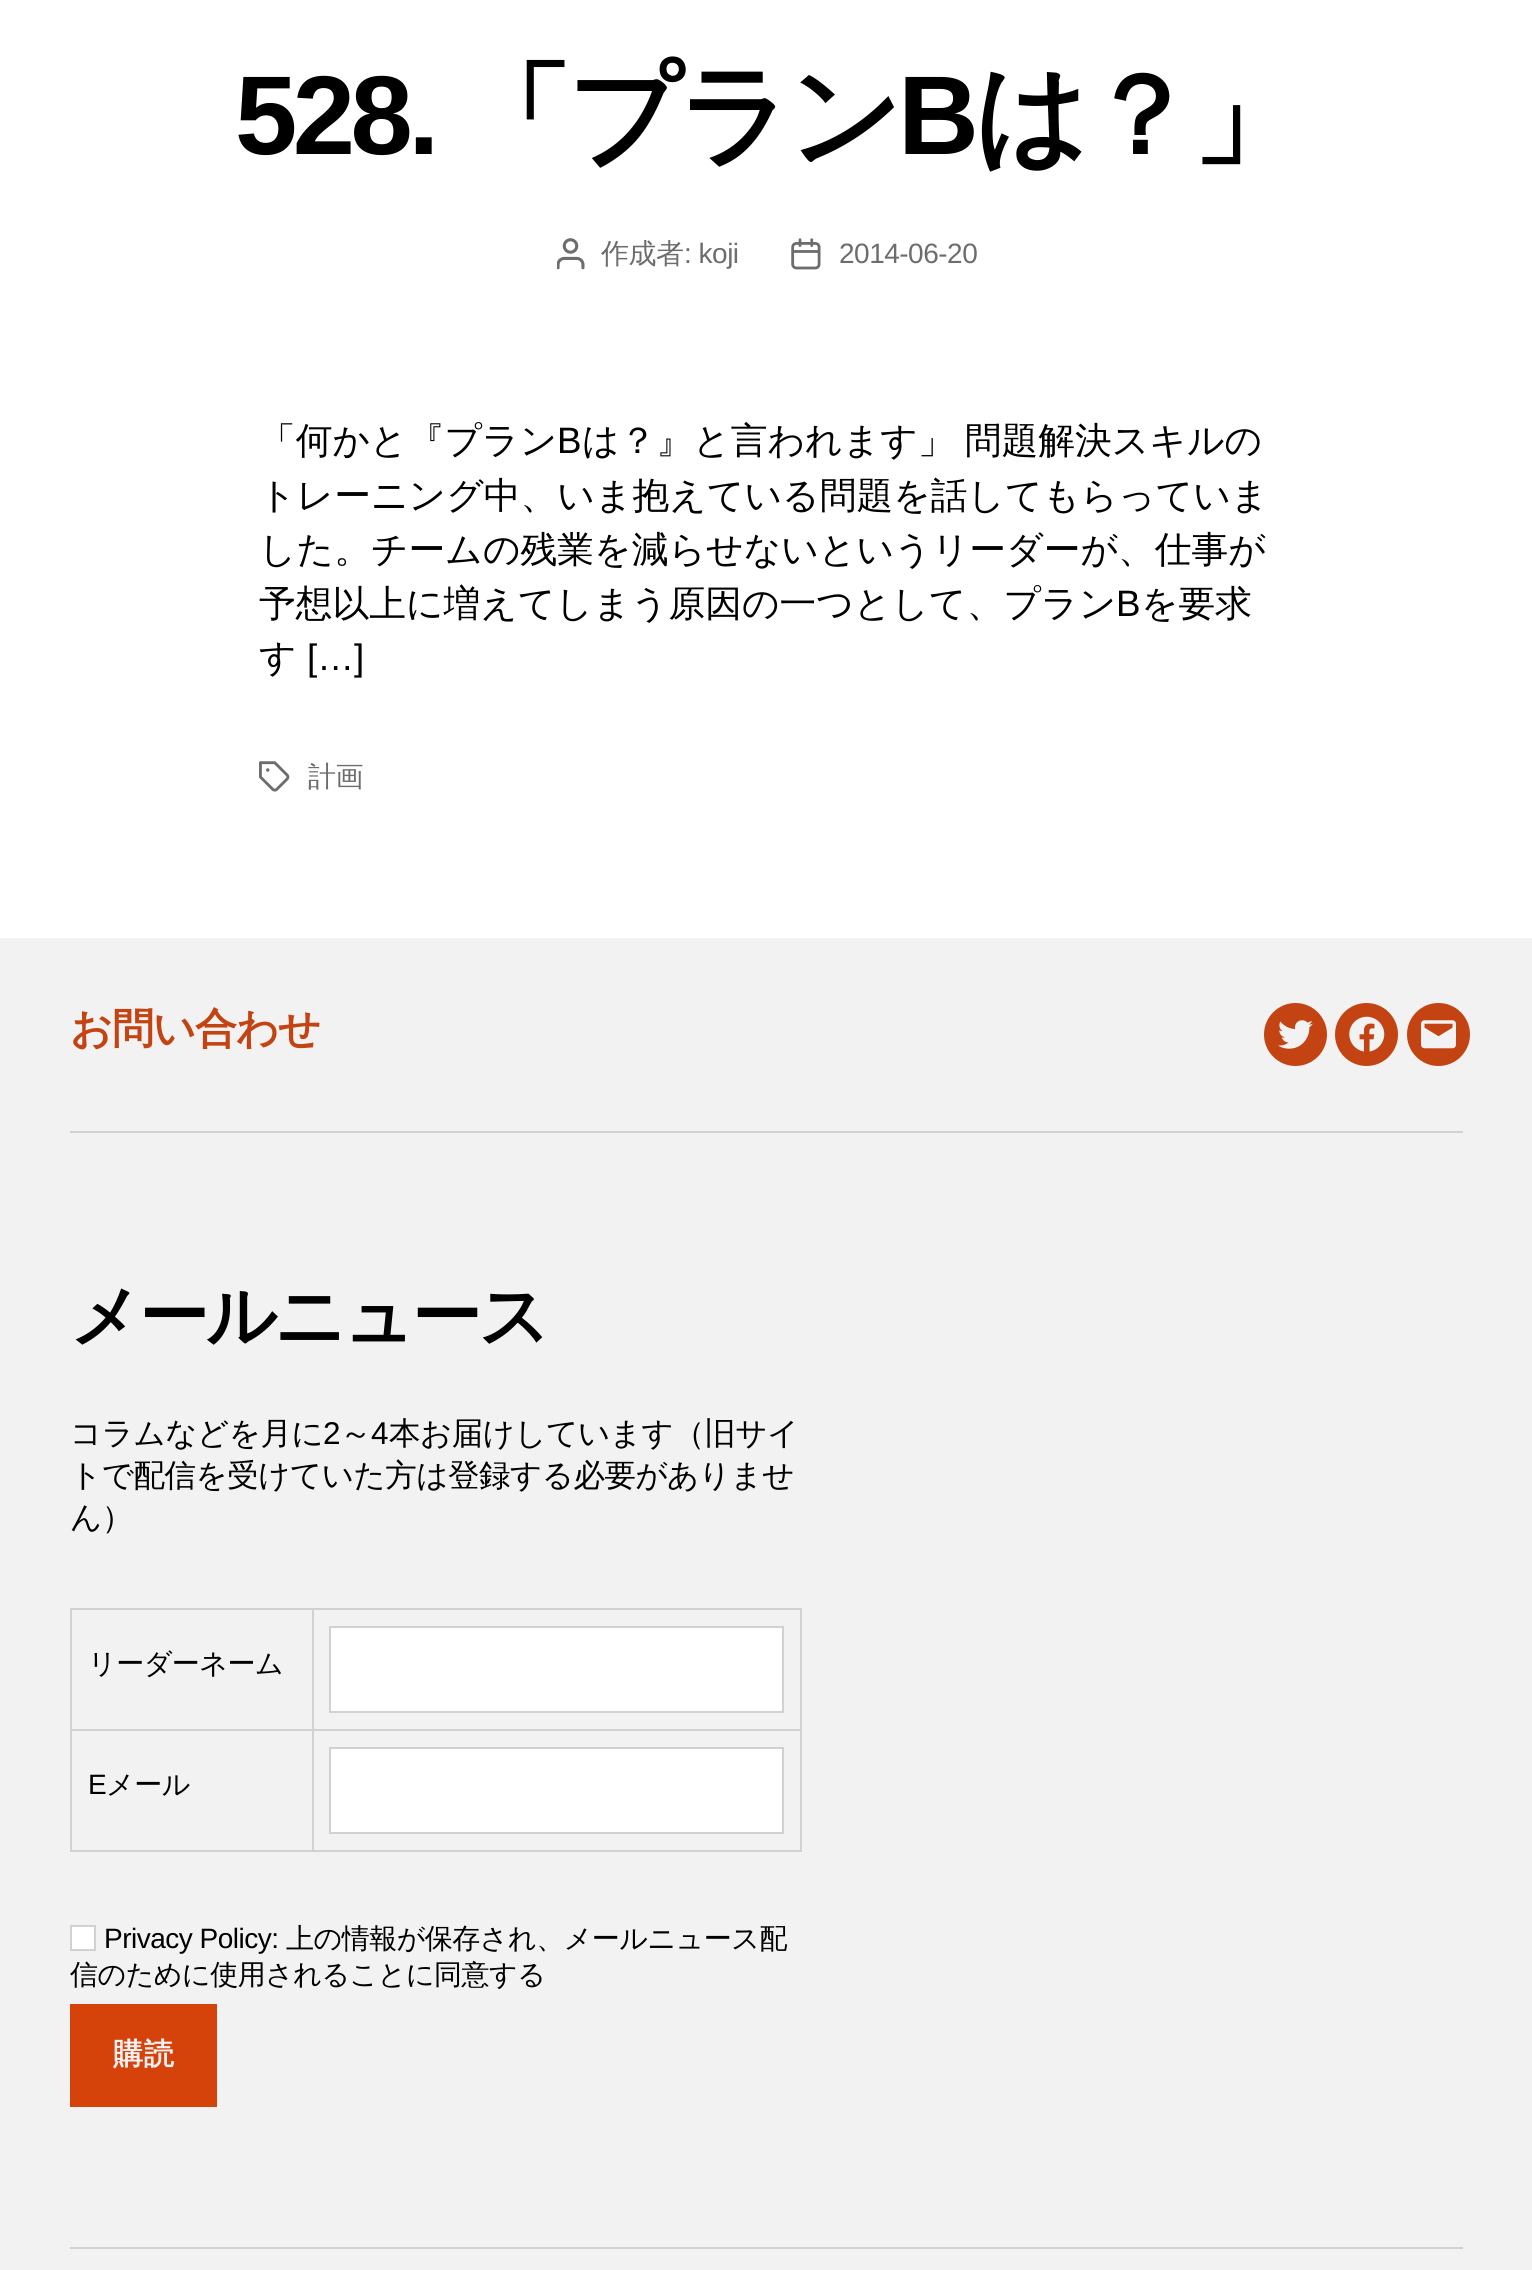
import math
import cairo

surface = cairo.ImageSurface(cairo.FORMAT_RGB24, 1532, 2270)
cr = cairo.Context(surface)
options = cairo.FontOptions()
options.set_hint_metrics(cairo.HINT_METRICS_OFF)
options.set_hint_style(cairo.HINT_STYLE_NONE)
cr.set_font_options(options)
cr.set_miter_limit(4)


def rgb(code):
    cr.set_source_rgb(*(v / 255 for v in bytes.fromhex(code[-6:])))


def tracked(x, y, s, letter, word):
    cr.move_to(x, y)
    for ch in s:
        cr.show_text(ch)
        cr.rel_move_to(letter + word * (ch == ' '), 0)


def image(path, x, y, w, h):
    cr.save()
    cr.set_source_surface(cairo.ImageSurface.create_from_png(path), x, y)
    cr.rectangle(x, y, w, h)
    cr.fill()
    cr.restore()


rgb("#ffffff")
cr.paint()
image("img/1.png", 557, 238, 28, 32)
image("img/2.png", 791, 238, 30, 32)
image("img/3.png", 259, 761, 31, 31)
rgb("#f2f2f2")
cr.rectangle(0, 938, 1532, 1332)
cr.fill()
rgb("#d1d1d1")
cr.rectangle(70, 1131, 1393, 2)
cr.fill()
rgb("#c34412")
cr.arc(1295.5, 1034.5, 31.5, 0, 2 * math.pi)
cr.fill()
image("img/4.png", 1278, 1020, 35, 29)
cr.arc(1366.5, 1034.5, 31.5, 0, 2 * math.pi)
cr.fill()
image("img/5.png", 1349, 1016, 36, 36)
cr.arc(1438.5, 1034.5, 31.5, 0, 2 * math.pi)
cr.fill()
image("img/6.png", 1421, 1020, 35, 29)
for x, y, w, h, color in [
    (70, 2247, 1393, 2, "#d1d1d1"),
    (70, 1608, 732, 2, "#d1d1d1"),
    (800, 1608, 2, 244, "#d1d1d1"),
    (70, 1850, 732, 2, "#d1d1d1"),
    (70, 1608, 2, 244, "#d1d1d1"),
    (312, 1729, 488, 2, "#d1d1d1"),
    (312, 1729, 2, 121, "#d1d1d1"),
    (72, 1729, 241, 2, "#d1d1d1"),
    (312, 1610, 2, 121, "#d1d1d1"),
]:
    rgb(color)
    cr.rectangle(x, y, w, h)
    cr.fill()
rgb("#ffffff")
cr.rectangle(330, 1627, 453, 85)
cr.fill_preserve()
rgb("#d1d1d1")
cr.stroke()
rgb("#ffffff")
cr.rectangle(330, 1748, 453, 85)
cr.fill_preserve()
rgb("#d1d1d1")
cr.stroke()
rgb("#ffffff")
cr.rectangle(71, 1926, 24, 24)
cr.fill_preserve()
rgb("#d1d1d1")
cr.stroke()
rgb("#d6430a")
cr.rectangle(70, 2004, 147, 103)
cr.fill()
cr.select_font_face("Liberation Sans", cairo.FONT_SLANT_NORMAL, cairo.FONT_WEIGHT_BOLD)
cr.set_font_size(112)
rgb("#000000")
tracked(235, 154, "528.", -4.5, 0)
cr.select_font_face("WenQuanYi Zen Hei", cairo.FONT_SLANT_NORMAL, cairo.FONT_WEIGHT_BOLD)
tracked(460, 154, "「プラン", -4.5, 0)
cr.select_font_face("Liberation Sans", cairo.FONT_SLANT_NORMAL, cairo.FONT_WEIGHT_BOLD)
tracked(898, 154, "B", -4.5, 0)
cr.select_font_face("WenQuanYi Zen Hei", cairo.FONT_SLANT_NORMAL, cairo.FONT_WEIGHT_BOLD)
tracked(974, 154, "は？」", -4.5, 0)
cr.select_font_face("WenQuanYi Zen Hei Medium")
cr.set_font_size(28)
rgb("#6d6d6d")
tracked(601, 263, "作成者", -0.5, 0)
cr.select_font_face("Liberation Sans")
tracked(684, 263, ": koji", -0.5, 0)
tracked(839, 263, "2014-06-20", -0.5, 0)
cr.select_font_face("WenQuanYi Zen Hei Medium")
cr.set_font_size(36.75)
rgb("#000000")
cr.move_to(259, 453)
cr.show_text("「何かと『プラン")
cr.select_font_face("Liberation Sans")
cr.move_to(557, 453)
cr.show_text("B")
cr.select_font_face("WenQuanYi Zen Hei Medium")
tracked(582, 453, "は？』と言われます」 問題解決スキルの", 0, -1)
for x, y, s in [
    (259, 508, "トレーニング中、いま抱えている問題を話してもらっていま"),
    (259, 562, "した。チームの残業を減らせないというリーダーが、仕事が"),
    (259, 616, "予想以上に増えてしまう原因の一つとして、プラン"),
]:
    cr.move_to(x, y)
    cr.show_text(s)
cr.select_font_face("Liberation Sans")
cr.move_to(1116, 616)
cr.show_text("B")
cr.select_font_face("WenQuanYi Zen Hei Medium")
cr.move_to(1141, 616)
cr.show_text("を要求")
cr.move_to(259, 670)
cr.show_text("す")
cr.select_font_face("Liberation Sans")
cr.move_to(307, 670)
cr.show_text("[…]")
cr.select_font_face("WenQuanYi Zen Hei Medium")
cr.set_font_size(28)
rgb("#6d6d6d")
tracked(308, 786, "計画", -0.5, 0)
cr.select_font_face("WenQuanYi Zen Hei", cairo.FONT_SLANT_NORMAL, cairo.FONT_WEIGHT_BOLD)
cr.set_font_size(42)
rgb("#c34412")
tracked(70, 1043, "お問い合わせ", -1, 0)
cr.set_font_size(70)
rgb("#000000")
tracked(70, 1340, "メールニュース", -3, 0)
cr.select_font_face("WenQuanYi Zen Hei Medium")
cr.set_font_size(31.5)
tracked(70, 1444, "コラムなどを月に", -0.5, 0)
cr.select_font_face("Liberation Sans")
tracked(323, 1444, "2", -0.5, 0)
cr.select_font_face("WenQuanYi Zen Hei Medium")
tracked(340, 1444, "～", -0.5, 0)
cr.select_font_face("Liberation Sans")
tracked(371, 1444, "4", -0.5, 0)
cr.select_font_face("WenQuanYi Zen Hei Medium")
for x, y, s in [
    (389, 1444, "本お届けしています（旧サイ"),
    (70, 1486, "トで配信を受けていた方は登録する必要がありませ"),
    (70, 1528, "ん）"),
]:
    tracked(x, y, s, -0.5, 0)
cr.set_font_size(28)
tracked(88, 1673, "リーダーネーム", -0.5, 0)
cr.select_font_face("Liberation Sans")
tracked(88, 1794, "E", -0.5, 0)
cr.select_font_face("WenQuanYi Zen Hei Medium")
tracked(106, 1794, "メール", -0.5, 0)
cr.select_font_face("Liberation Sans")
tracked(104, 1948, "Privacy Policy:", -0.5, 0)
cr.select_font_face("WenQuanYi Zen Hei Medium")
tracked(286, 1948, "上の情報が保存され、メールニュース配", -0.5, 0)
tracked(70, 1984, "信のために使用されることに同意する", -0.5, 0)
cr.select_font_face("WenQuanYi Zen Hei", cairo.FONT_SLANT_NORMAL, cairo.FONT_WEIGHT_BOLD)
cr.set_font_size(30)
rgb("#f2f2f2")
tracked(113, 2064, "購読", 1, 0)
surface.write_to_png("page.png")
